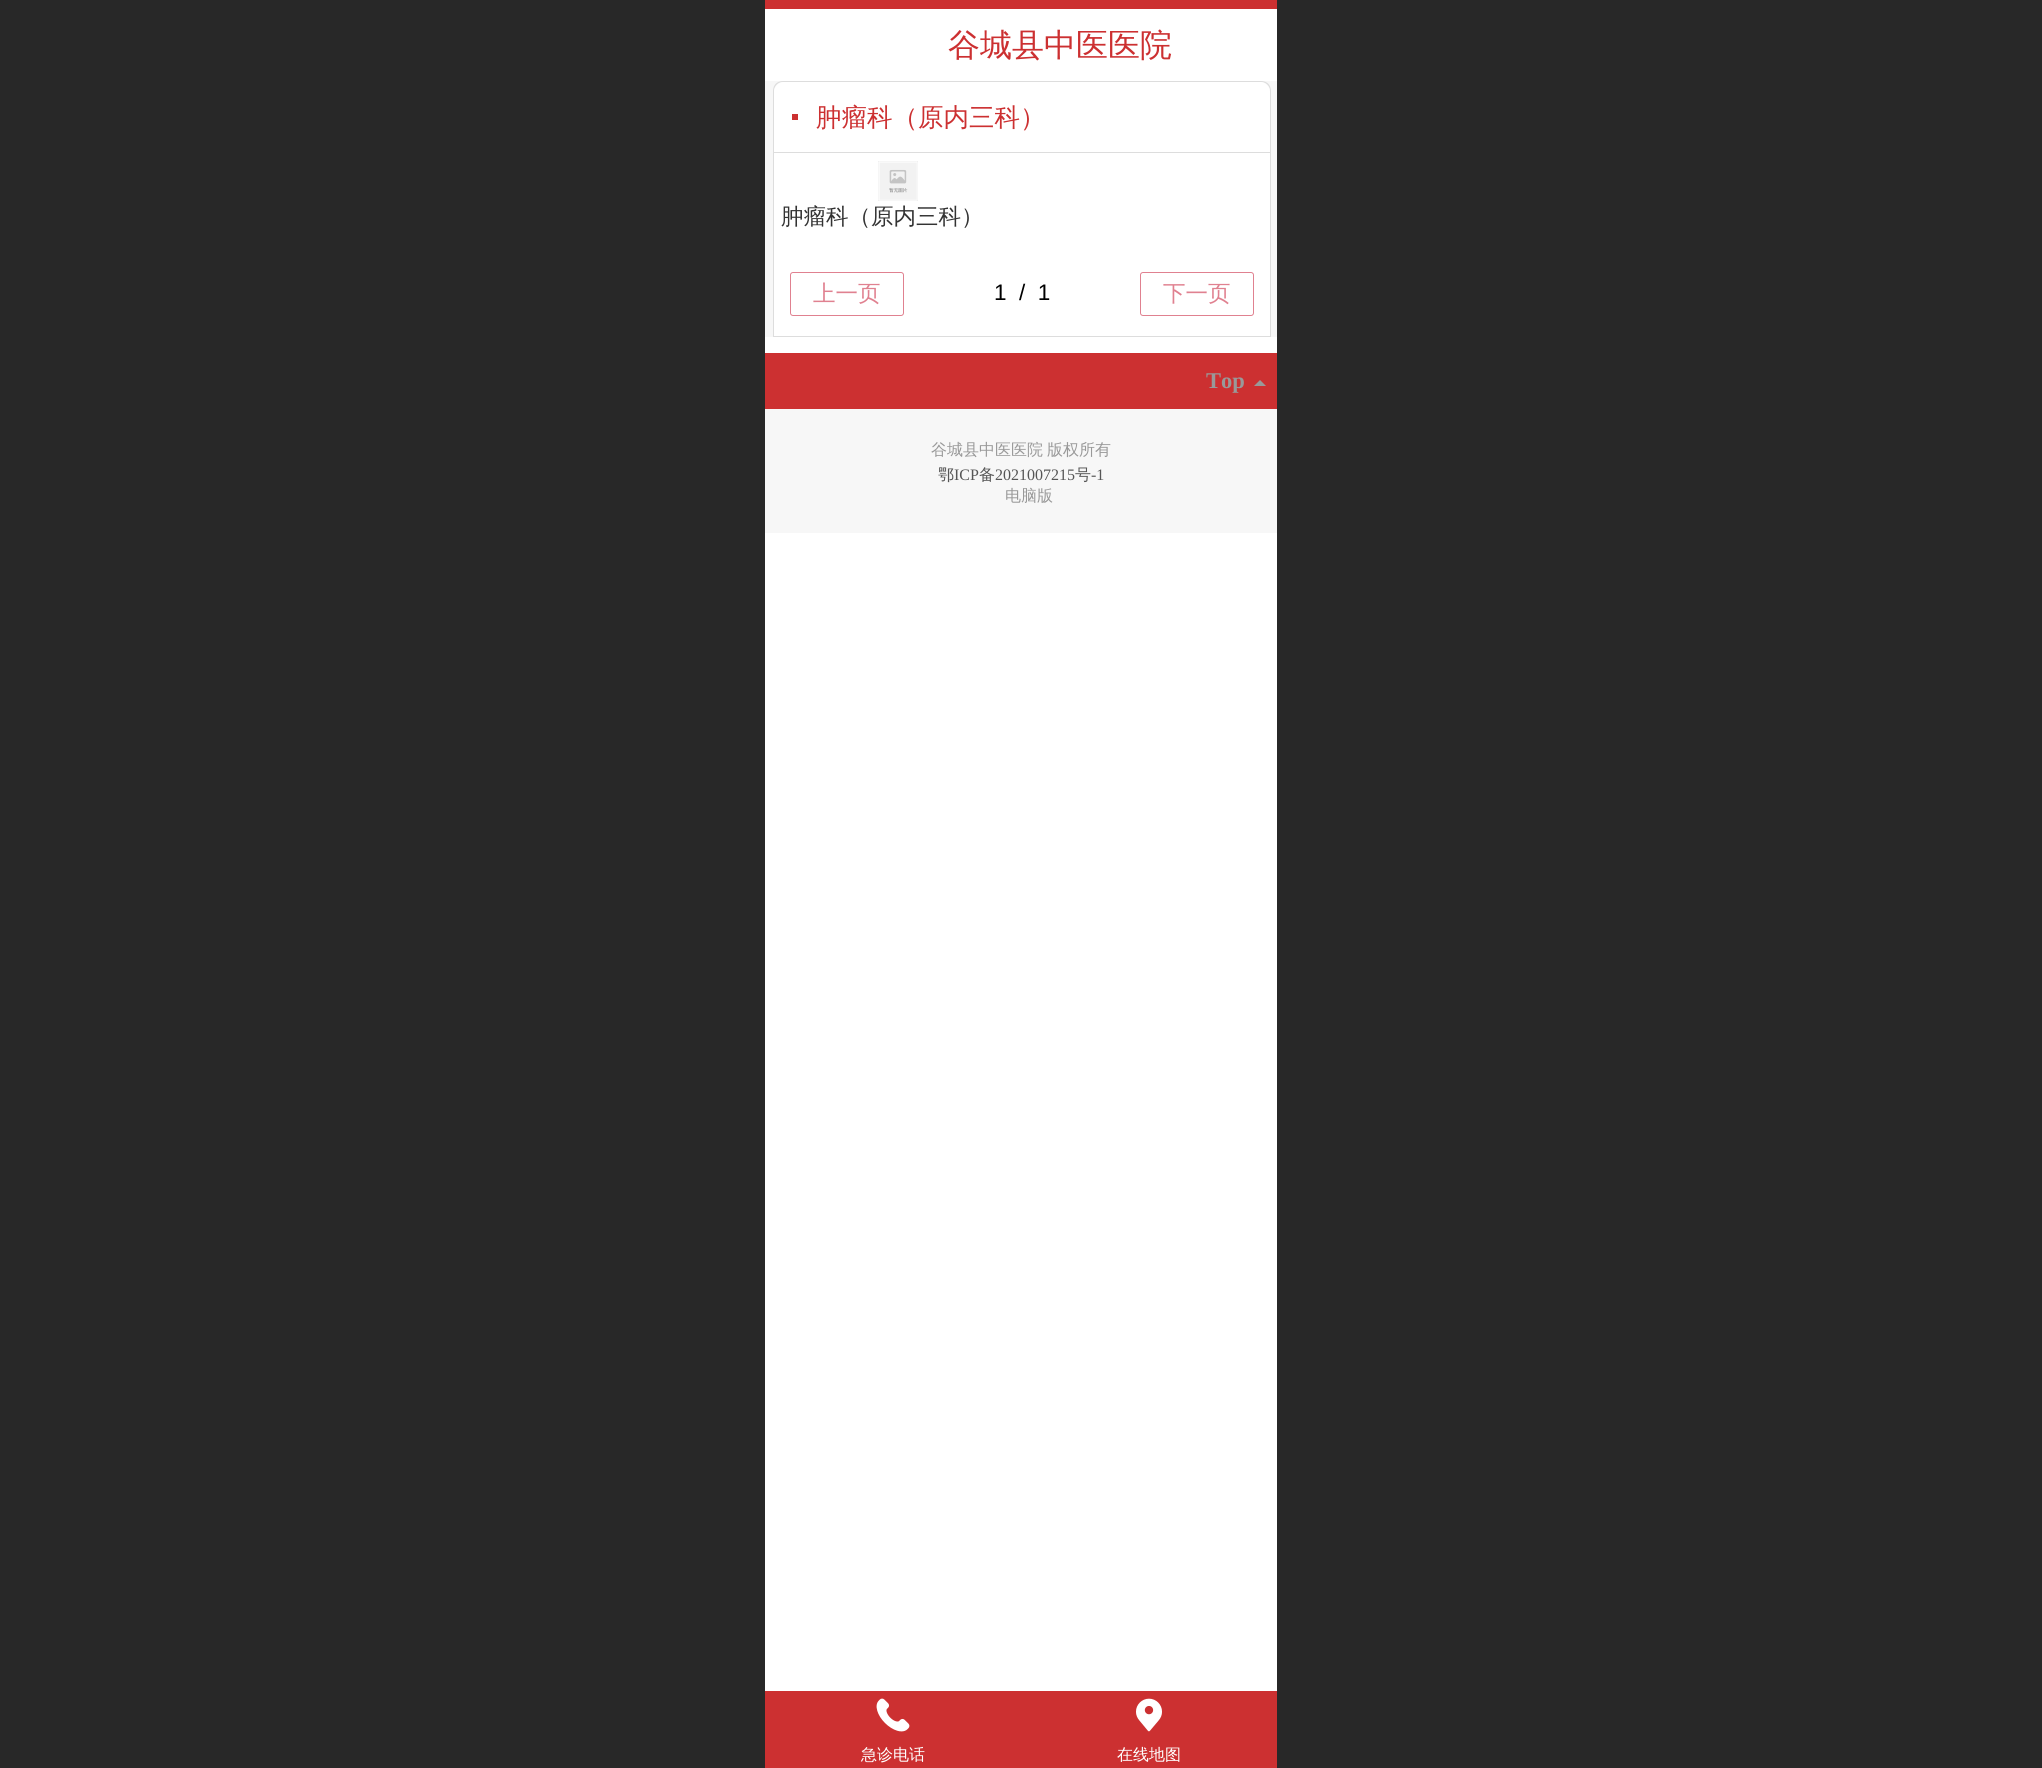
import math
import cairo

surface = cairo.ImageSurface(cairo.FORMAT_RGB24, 2042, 1768)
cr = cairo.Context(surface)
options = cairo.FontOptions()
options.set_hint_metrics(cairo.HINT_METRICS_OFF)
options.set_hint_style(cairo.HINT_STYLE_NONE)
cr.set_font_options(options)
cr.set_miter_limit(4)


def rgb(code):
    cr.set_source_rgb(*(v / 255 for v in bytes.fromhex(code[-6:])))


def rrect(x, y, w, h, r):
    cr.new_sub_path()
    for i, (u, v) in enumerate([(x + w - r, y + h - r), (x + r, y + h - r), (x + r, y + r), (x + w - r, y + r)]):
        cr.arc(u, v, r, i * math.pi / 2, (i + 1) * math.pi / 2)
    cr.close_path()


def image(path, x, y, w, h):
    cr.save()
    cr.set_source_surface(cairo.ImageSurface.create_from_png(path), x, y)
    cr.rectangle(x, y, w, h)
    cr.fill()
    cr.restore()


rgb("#ffffff")
cr.paint()
for x, y, w, h, color in [
    (0, 0, 765, 1768, "#282828"),
    (765, 0, 512, 9, "#cc3031"),
    (765, 81, 512, 256, "#f7f7f7"),
]:
    rgb(color)
    cr.rectangle(x, y, w, h)
    cr.fill()
rgb("#dddddd")
cr.set_fill_rule(cairo.FILL_RULE_EVEN_ODD)
cr.new_path()
cr.move_to(783, 81)
cr.line_to(1261, 81)
cr.curve_to(1267, 81, 1271, 85, 1271, 91)
cr.line_to(1271, 152)
cr.line_to(773, 152)
cr.line_to(773, 91)
cr.curve_to(773, 85, 777, 81, 783, 81)
cr.close_path()
cr.move_to(783, 82)
cr.line_to(1261, 82)
cr.curve_to(1266, 82, 1270, 86, 1270, 91)
cr.line_to(1270, 152)
cr.line_to(774, 152)
cr.line_to(774, 91)
cr.curve_to(774, 86, 778, 82, 783, 82)
cr.close_path()
cr.fill()
rgb("#ffffff")
cr.new_path()
cr.move_to(784, 82)
cr.line_to(1260, 82)
cr.curve_to(1265.5, 82, 1270, 86.5, 1270, 92)
cr.line_to(1270, 152)
cr.line_to(774, 152)
cr.line_to(774, 92)
cr.curve_to(774, 86.5, 778.5, 82, 784, 82)
cr.close_path()
cr.fill()
rgb("#cc3031")
cr.rectangle(792, 114, 6, 6)
cr.fill()
rgb("#ffffff")
cr.rectangle(773.5, 152.5, 497, 184)
cr.fill_preserve()
rgb("#dddddd")
cr.set_line_width(1)
cr.stroke()
image("img/1.png", 878, 161, 40, 40)
rrect(790.5, 272.5, 113, 43, 2.5)
rgb("#e08190")
cr.stroke()
rrect(1140.5, 272.5, 113, 43, 2.5)
cr.stroke()
rgb("#f7f7f7")
cr.rectangle(765, 409, 512, 124)
cr.fill()
rgb("#cc3031")
cr.rectangle(765, 353, 512, 56)
cr.fill()
rgb("#999999")
cr.set_fill_rule(cairo.FILL_RULE_WINDING)
cr.new_path()
cr.move_to(1266, 386)
cr.line_to(1254, 386)
cr.line_to(1260, 380)
cr.close_path()
cr.fill()
rgb("#cc3031")
cr.rectangle(765, 1691, 512, 77)
cr.fill()
image("img/2.png", 876, 1698, 34, 34)
image("img/3.png", 1136, 1698, 26, 34)
rgb("#282828")
cr.rectangle(1277, 0, 765, 1768)
cr.fill()
cr.select_font_face("WenQuanYi Zen Hei Medium")
cr.set_font_size(32)
rgb("#cc3031")
cr.move_to(948, 56)
cr.show_text("谷城县中医医院")
cr.set_font_size(25.5)
cr.move_to(816, 126)
cr.show_text("肿瘤科（原内三科）")
cr.set_font_size(22.5)
rgb("#333333")
cr.move_to(781, 224)
cr.show_text("肿瘤科（原内三科）")
rgb("#e08190")
cr.move_to(813, 301)
cr.show_text("上一页")
cr.select_font_face("Liberation Sans")
rgb("#000000")
cr.move_to(994, 300)
cr.show_text("1  /  1")
cr.select_font_face("WenQuanYi Zen Hei Medium")
rgb("#e08190")
cr.move_to(1163, 301)
cr.show_text("下一页")
cr.select_font_face("Liberation Serif", cairo.FONT_SLANT_NORMAL, cairo.FONT_WEIGHT_BOLD)
rgb("#999999")
cr.move_to(1206, 388)
cr.show_text("Top")
cr.select_font_face("WenQuanYi Zen Hei Medium")
cr.set_font_size(16)
cr.move_to(931, 455)
cr.show_text("谷城县中医医院")
cr.move_to(1047, 455)
cr.show_text("版权所有")
rgb("#565656")
cr.move_to(938, 480)
cr.show_text("鄂")
cr.select_font_face("Liberation Serif")
cr.move_to(954, 480)
cr.show_text("ICP")
cr.select_font_face("WenQuanYi Zen Hei Medium")
cr.move_to(979, 480)
cr.show_text("备")
cr.select_font_face("Liberation Serif")
cr.move_to(995, 480)
cr.show_text("2021007215")
cr.select_font_face("WenQuanYi Zen Hei Medium")
cr.move_to(1075, 480)
cr.show_text("号")
cr.select_font_face("Liberation Serif")
cr.move_to(1091, 480)
cr.show_text("-1")
cr.select_font_face("WenQuanYi Zen Hei Medium")
rgb("#999999")
cr.move_to(1005, 501)
cr.show_text("电脑版")
rgb("#ffffff")
cr.move_to(861, 1760)
cr.show_text("急诊电话")
cr.move_to(1117, 1760)
cr.show_text("在线地图")
surface.write_to_png("page.png")
